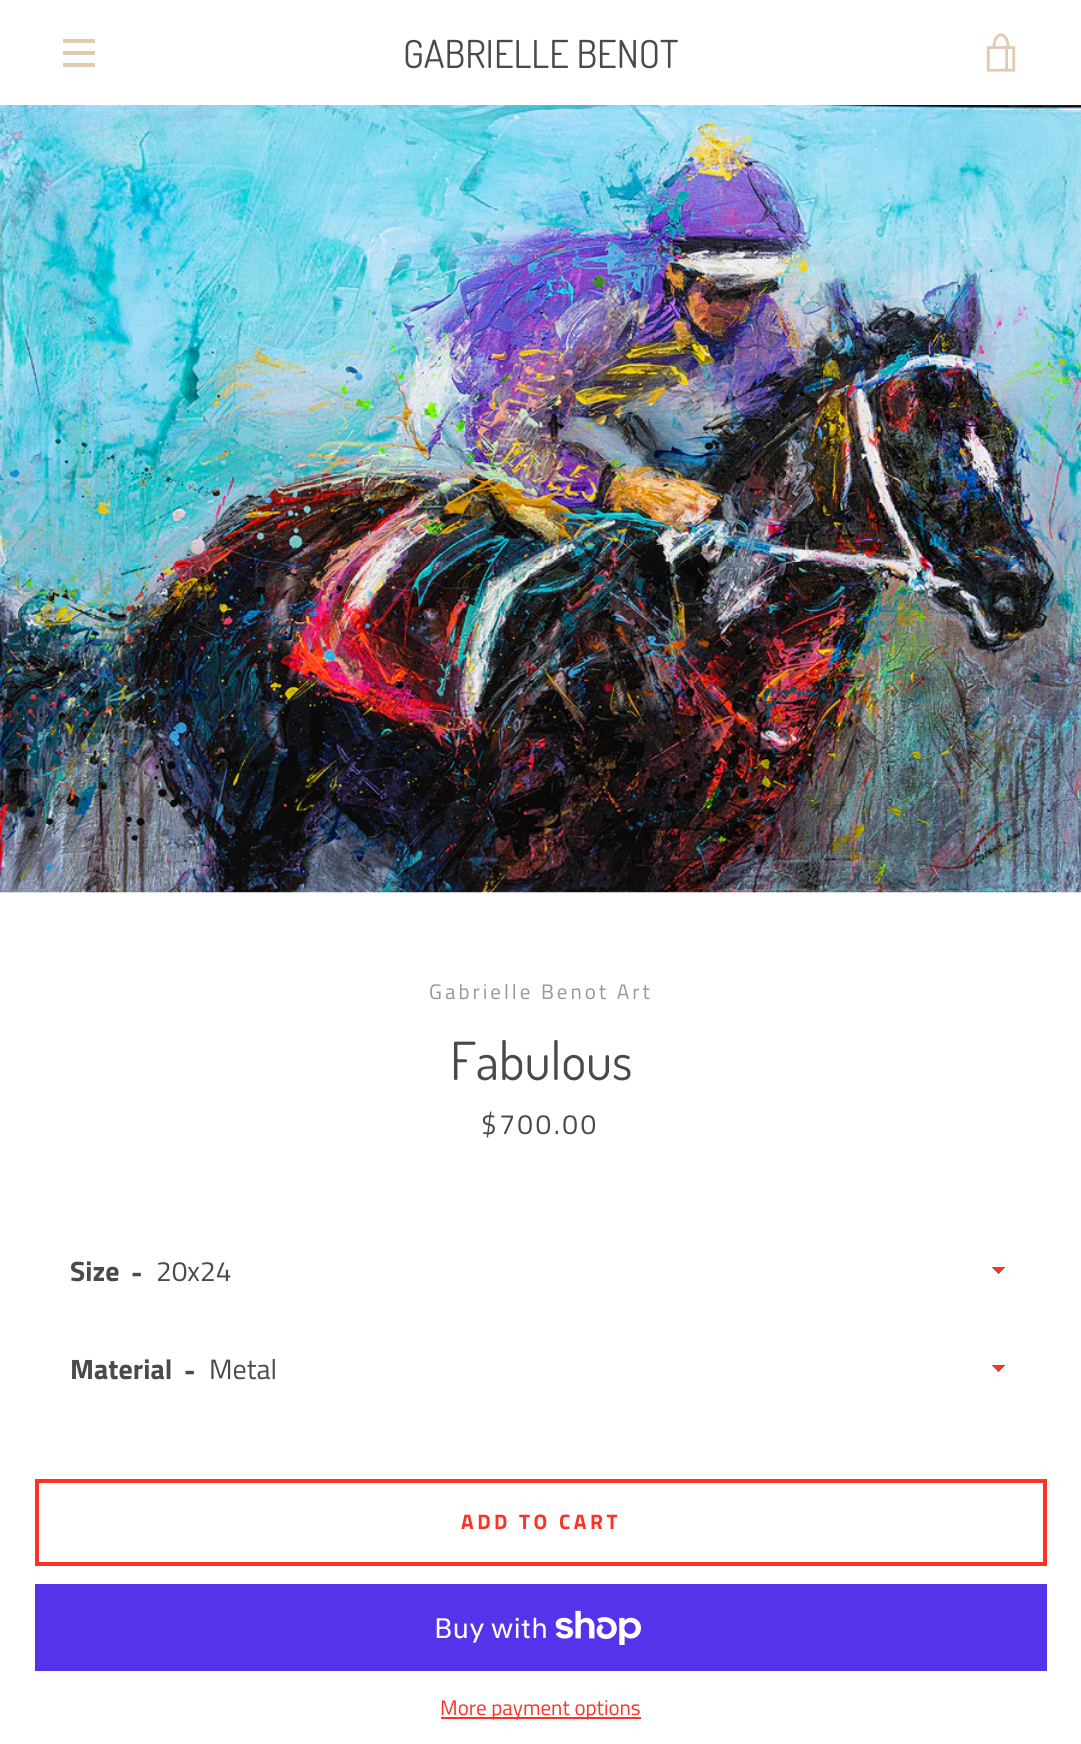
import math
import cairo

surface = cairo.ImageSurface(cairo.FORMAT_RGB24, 1081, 1744)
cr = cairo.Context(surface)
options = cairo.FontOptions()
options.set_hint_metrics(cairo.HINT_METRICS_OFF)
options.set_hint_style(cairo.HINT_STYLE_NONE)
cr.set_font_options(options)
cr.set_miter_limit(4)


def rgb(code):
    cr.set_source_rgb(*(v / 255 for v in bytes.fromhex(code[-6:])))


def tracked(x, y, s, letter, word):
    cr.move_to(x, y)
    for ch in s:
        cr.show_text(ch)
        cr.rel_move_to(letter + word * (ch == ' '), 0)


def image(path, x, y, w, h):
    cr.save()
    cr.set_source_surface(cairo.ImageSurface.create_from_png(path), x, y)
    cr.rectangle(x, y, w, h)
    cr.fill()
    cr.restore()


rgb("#ffffff")
cr.paint()
for x, y, w, h, color in [
    (63, 39, 32, 4, "#e1c9b4"),
    (63, 51, 32, 4, "#e1c9b4"),
    (63, 63, 32, 4, "#e1c9b4"),
]:
    rgb(color)
    cr.rectangle(x, y, w, h)
    cr.fill()
image("img/1.png", 986, 33, 30, 39)
image("img/2.png", 0, 105, 1081, 788)
gradient = cairo.LinearGradient(998, 1267, 1005, 1274)
gradient.add_color_stop_rgba(0.5, 0.988, 0.196, 0.153, 1)
gradient.add_color_stop_rgba(0.5, 1, 1, 1, 1)
cr.set_source(gradient)
cr.rectangle(998, 1267, 7, 7)
cr.fill()
gradient = cairo.LinearGradient(991, 1274, 998, 1267)
gradient.add_color_stop_rgba(0.5, 1, 1, 1, 1)
gradient.add_color_stop_rgba(0.5, 0.988, 0.196, 0.153, 1)
cr.set_source(gradient)
cr.rectangle(991, 1267, 7, 6)
cr.fill()
gradient = cairo.LinearGradient(998, 1365, 1005, 1372)
gradient.add_color_stop_rgba(0.5, 0.988, 0.196, 0.153, 1)
gradient.add_color_stop_rgba(0.5, 1, 1, 1, 1)
cr.set_source(gradient)
cr.rectangle(998, 1365, 7, 7)
cr.fill()
gradient = cairo.LinearGradient(991, 1372, 998, 1365)
gradient.add_color_stop_rgba(0.5, 1, 1, 1, 1)
gradient.add_color_stop_rgba(0.5, 0.988, 0.196, 0.153, 1)
cr.set_source(gradient)
cr.rectangle(991, 1365, 7, 6)
cr.fill()
cr.rectangle(37, 1481, 1008, 83)
rgb("#fc3227")
cr.set_line_width(4)
cr.stroke()
rgb("#5433eb")
cr.rectangle(35, 1584, 1012, 87)
cr.fill()
image("img/3.png", 555, 1610, 86, 35)
rgb("#fc3227")
cr.rectangle(441, 1717, 200, 2)
cr.fill()
cr.select_font_face("Dosis")
cr.set_font_size(38.5)
rgb("#4a4a4a")
cr.move_to(403, 68)
cr.show_text("GABRIELLE BENOT")
cr.select_font_face("Titillium Web")
cr.set_font_size(21)
rgb("#979797")
tracked(429, 999, "Gabrielle Benot Art", 3, 0)
cr.select_font_face("Dosis")
cr.set_font_size(52.5)
rgb("#4a4a4a")
cr.move_to(450, 1080)
cr.show_text("Fabulous")
cr.select_font_face("Titillium Web")
cr.set_font_size(28)
tracked(481, 1134, "$700.00", 2.5, 0)
cr.select_font_face("Titillium Web", cairo.FONT_SLANT_NORMAL, cairo.FONT_WEIGHT_BOLD)
cr.move_to(70, 1281)
cr.show_text("Size")
cr.move_to(131, 1282)
cr.show_text("-")
cr.select_font_face("Titillium Web")
cr.move_to(156, 1281)
cr.show_text("20x24")
cr.select_font_face("Titillium Web", cairo.FONT_SLANT_NORMAL, cairo.FONT_WEIGHT_BOLD)
cr.move_to(70, 1379)
cr.show_text("Material")
cr.move_to(184, 1380)
cr.show_text("-")
cr.select_font_face("Titillium Web")
cr.move_to(209, 1379)
cr.show_text("Metal")
cr.select_font_face("Titillium Web", cairo.FONT_SLANT_NORMAL, cairo.FONT_WEIGHT_BOLD)
cr.set_font_size(21)
rgb("#fc3227")
tracked(461, 1529, "ADD TO CART", 3.5, 0)
cr.select_font_face("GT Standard")
cr.set_font_size(28)
rgb("#ffffff")
cr.move_to(434, 1638)
cr.show_text("Buy with")
cr.select_font_face("Titillium Web")
cr.set_font_size(21)
rgb("#fc3227")
cr.move_to(440, 1715)
cr.show_text("More payment options")
surface.write_to_png("page.png")
